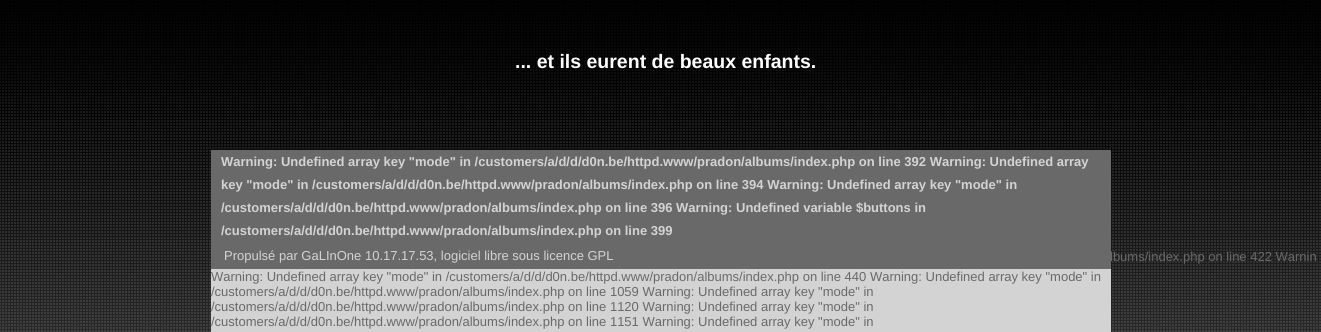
import math
import cairo

surface = cairo.ImageSurface(cairo.FORMAT_RGB24, 1321, 332)
cr = cairo.Context(surface)
options = cairo.FontOptions()
options.set_hint_metrics(cairo.HINT_METRICS_OFF)
options.set_hint_style(cairo.HINT_STYLE_NONE)
cr.set_font_options(options)
cr.set_miter_limit(4)


def rgb(code):
    cr.set_source_rgb(*(v / 255 for v in bytes.fromhex(code[-6:])))


def image(path, x, y, w, h):
    cr.save()
    cr.set_source_surface(cairo.ImageSurface.create_from_png(path), x, y)
    cr.rectangle(x, y, w, h)
    cr.fill()
    cr.restore()


rgb("#ffffff")
cr.paint()
image("img/1.png", 0, 0, 1321, 332)
rgb("#696969")
cr.rectangle(211, 150, 900, 119)
cr.fill()
rgb("#d3d3d3")
cr.rectangle(211, 269, 900, 63)
cr.fill()
cr.select_font_face("Liberation Sans", cairo.FONT_SLANT_NORMAL, cairo.FONT_WEIGHT_BOLD)
cr.set_font_size(19.5)
rgb("#ffffff")
cr.move_to(515, 68)
cr.show_text("... et ils eurent de beaux enfants.")
cr.set_font_size(13)
rgb("#d3d3d3")
for x, y, s in [
    (221, 166, "Warning: Undefined array key \"mode\" in /customers/a/d/d/d0n.be/httpd.www/pradon/albums/index.php on line 392 Warning: Undefined array"),
    (221, 189, "key \"mode\" in /customers/a/d/d/d0n.be/httpd.www/pradon/albums/index.php on line 394 Warning: Undefined array key \"mode\" in"),
    (221, 212, "/customers/a/d/d/d0n.be/httpd.www/pradon/albums/index.php on line 396 Warning: Undefined variable $buttons in"),
    (221, 235, "/customers/a/d/d/d0n.be/httpd.www/pradon/albums/index.php on line 399"),
]:
    cr.move_to(x, y)
    cr.show_text(s)
cr.select_font_face("Liberation Sans")
cr.move_to(224, 260)
cr.show_text("Propulsé par GaLInOne 10.17.17.53, logiciel libre sous licence GPL")
rgb("#696969")
for x, y, s in [
    (1110, 261, "lbums/index.php on line 422 Warnin"),
    (211, 281, "Warning: Undefined array key \"mode\" in /customers/a/d/d/d0n.be/httpd.www/pradon/albums/index.php on line 440 Warning: Undefined array key \"mode\" in"),
    (211, 296, "/customers/a/d/d/d0n.be/httpd.www/pradon/albums/index.php on line 1059 Warning: Undefined array key \"mode\" in"),
    (211, 311, "/customers/a/d/d/d0n.be/httpd.www/pradon/albums/index.php on line 1120 Warning: Undefined array key \"mode\" in"),
    (211, 326, "/customers/a/d/d/d0n.be/httpd.www/pradon/albums/index.php on line 1151 Warning: Undefined array key \"mode\" in"),
]:
    cr.move_to(x, y)
    cr.show_text(s)
surface.write_to_png("page.png")
